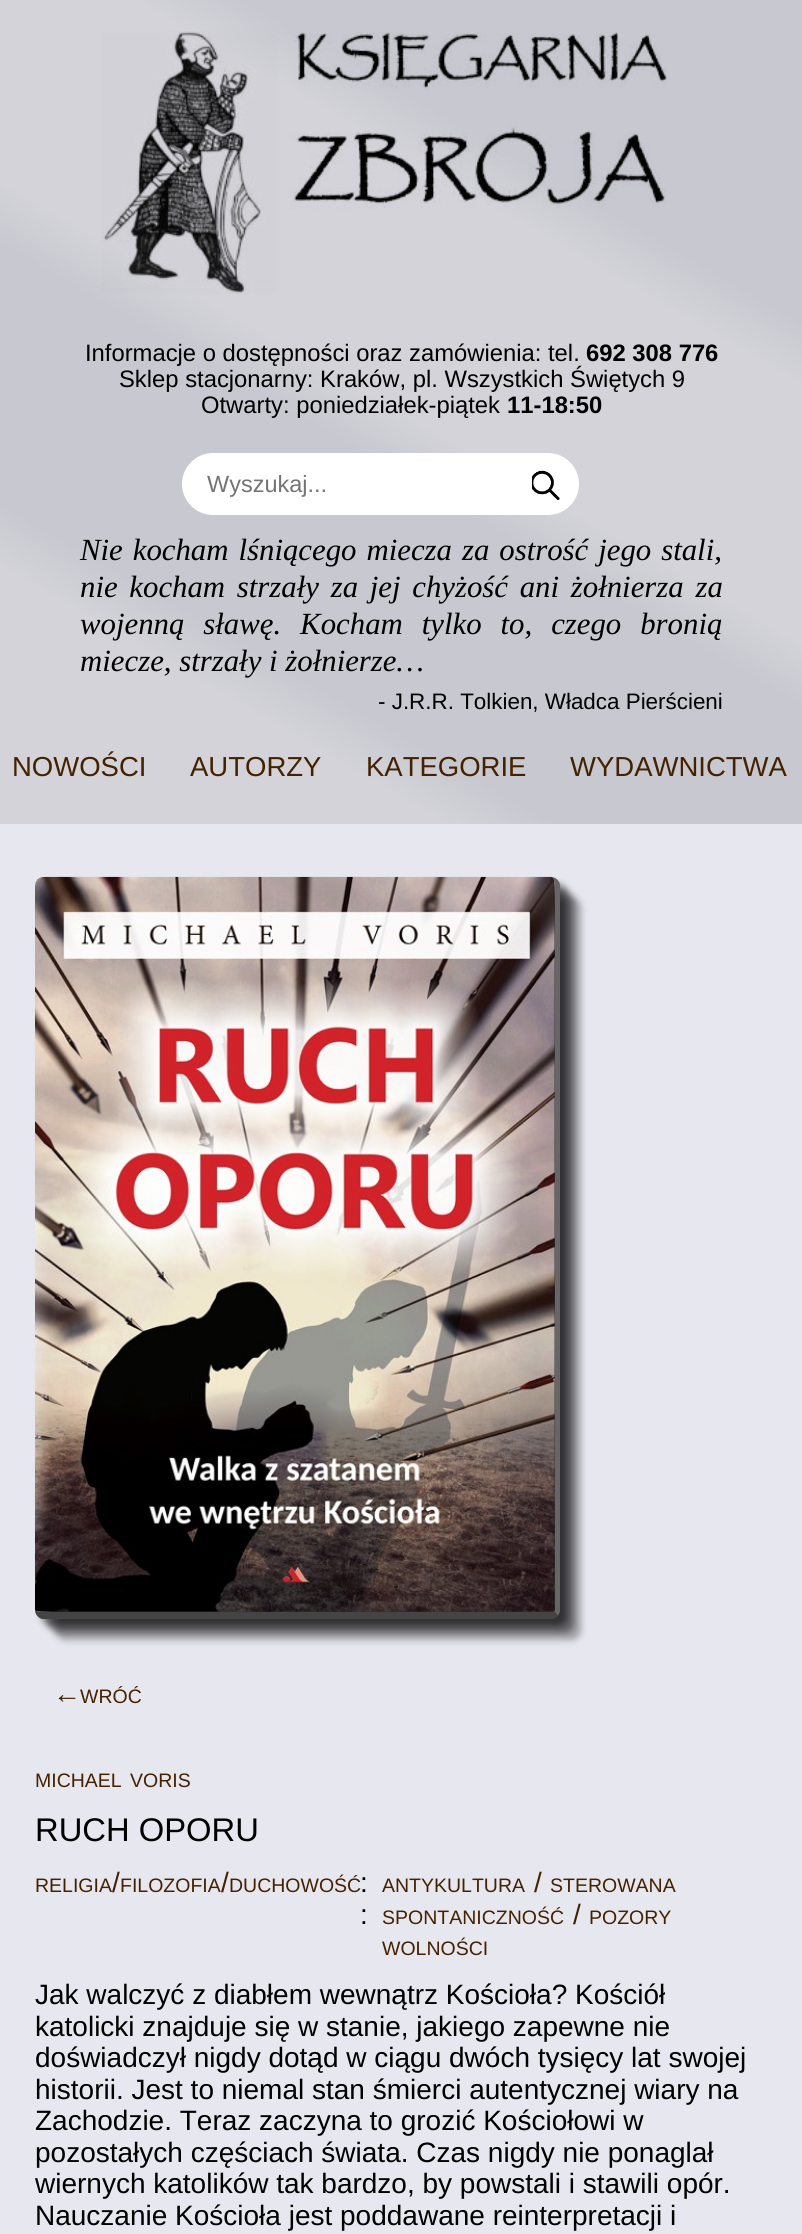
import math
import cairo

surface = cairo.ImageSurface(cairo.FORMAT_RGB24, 802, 2234)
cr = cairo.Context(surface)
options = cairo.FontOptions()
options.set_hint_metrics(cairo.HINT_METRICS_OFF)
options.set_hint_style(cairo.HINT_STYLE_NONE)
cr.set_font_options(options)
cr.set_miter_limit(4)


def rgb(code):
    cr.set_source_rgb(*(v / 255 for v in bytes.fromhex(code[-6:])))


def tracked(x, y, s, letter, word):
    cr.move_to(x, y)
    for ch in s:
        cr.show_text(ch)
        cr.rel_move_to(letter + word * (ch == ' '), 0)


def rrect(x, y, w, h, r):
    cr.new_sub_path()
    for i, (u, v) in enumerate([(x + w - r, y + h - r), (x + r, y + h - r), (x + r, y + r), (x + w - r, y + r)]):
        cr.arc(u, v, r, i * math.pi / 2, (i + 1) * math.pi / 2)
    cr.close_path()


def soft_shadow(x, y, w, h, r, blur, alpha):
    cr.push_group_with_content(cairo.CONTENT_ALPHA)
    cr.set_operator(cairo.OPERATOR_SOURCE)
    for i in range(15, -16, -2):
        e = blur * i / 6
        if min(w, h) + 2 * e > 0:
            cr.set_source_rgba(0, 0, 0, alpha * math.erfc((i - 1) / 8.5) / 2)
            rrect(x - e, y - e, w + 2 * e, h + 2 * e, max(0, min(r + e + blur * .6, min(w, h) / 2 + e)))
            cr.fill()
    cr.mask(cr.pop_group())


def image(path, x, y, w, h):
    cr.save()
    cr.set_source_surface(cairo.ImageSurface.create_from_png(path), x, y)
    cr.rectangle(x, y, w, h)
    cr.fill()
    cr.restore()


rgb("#e7e7ef")
cr.paint()
gradient = cairo.LinearGradient(123, 895, 680, -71)
gradient.add_color_stop_rgba(0.2, 0.827, 0.827, 0.851, 1)
gradient.add_color_stop_rgba(0.25, 0.784, 0.784, 0.816, 1)
gradient.add_color_stop_rgba(0.45, 0.784, 0.784, 0.816, 1)
gradient.add_color_stop_rgba(0.5, 0.827, 0.827, 0.851, 1)
gradient.add_color_stop_rgba(0.7, 0.827, 0.827, 0.851, 1)
gradient.add_color_stop_rgba(0.75, 0.784, 0.784, 0.816, 1)
gradient.add_color_stop_rgba(1, 0.784, 0.784, 0.816, 1)
cr.set_source(gradient)
cr.rectangle(0, 0, 802, 824)
cr.fill()
image("img/1.png", 101, 31, 566, 263)
rgb("#ffffff")
rrect(182, 453, 397, 62, 31)
cr.fill()
image("img/2.png", 532, 470, 28, 30)
rgb("#000000")
soft_shadow(42, 884, 525, 742, 9, 3.5, 0.5)
soft_shadow(49, 891, 525, 742, 9, 3.5, 0.4)
soft_shadow(56, 898, 525, 742, 9, 3.5, 0.3)
rgb("#666666")
cr.new_path()
cr.move_to(554, 1611)
cr.line_to(555, 1610)
cr.line_to(555, 886)
cr.curve_to(555, 884, 554, 877, 551, 877)
cr.curve_to(556, 877, 560, 881, 560, 886)
cr.line_to(560, 1610)
cr.curve_to(560, 1612, 559, 1614, 558, 1616)
cr.close_path()
cr.fill()
rgb("#444444")
cr.new_path()
cr.move_to(42, 1619)
cr.curve_to(38, 1618, 35, 1614, 35, 1610)
cr.curve_to(35, 1611, 39, 1612, 44, 1612)
cr.line_to(551, 1612)
cr.line_to(554, 1611)
cr.line_to(558, 1616)
cr.curve_to(557, 1617, 555, 1618, 553, 1619)
cr.close_path()
cr.fill()
image("img/3.png", 35, 876, 520, 736)
cr.select_font_face("Liberation Sans")
cr.set_font_size(23.8)
rgb("#000000")
cr.move_to(85, 361)
cr.show_text("Informacje o dostępności oraz zamówienia: tel.")
cr.select_font_face("Liberation Sans", cairo.FONT_SLANT_NORMAL, cairo.FONT_WEIGHT_BOLD)
cr.move_to(586, 361)
cr.show_text("692 308 776")
cr.select_font_face("Liberation Sans")
cr.move_to(119, 387)
cr.show_text("Sklep stacjonarny: Kraków, pl. Wszystkich Świętych 9")
cr.move_to(201, 413)
cr.show_text("Otwarty: poniedziałek-piątek")
cr.select_font_face("Liberation Sans", cairo.FONT_SLANT_NORMAL, cairo.FONT_WEIGHT_BOLD)
cr.move_to(507, 413)
cr.show_text("11-18:50")
cr.select_font_face("Liberation Sans")
cr.set_font_size(23.5)
rgb("#757575")
cr.move_to(207, 492)
cr.show_text("Wyszukaj...")
cr.select_font_face("Liberation Serif", cairo.FONT_SLANT_ITALIC)
cr.set_font_size(30.8)
rgb("#000000")
tracked(80, 560, "Nie kocham lśniącego miecza za ostrość jego stali,", 0, 2.25)
tracked(80, 597, "nie kocham strzały za jej chyżość ani żołnierza za", 0, 4)
tracked(80, 634, "wojenną sławę. Kocham tylko to, czego bronią", 0, 11.25)
cr.move_to(80, 671)
cr.show_text("miecze, strzały i żołnierze…")
cr.select_font_face("Liberation Sans")
cr.set_font_size(22.4)
cr.move_to(378, 709)
cr.show_text("- J.R.R. Tolkien, Władca Pierścieni")
cr.set_font_size(27.5)
rgb("#442200")
for x, y, s in [
    (12, 776, "NOWOŚCI"),
    (190, 776, "AUTORZY"),
    (366, 776, "KATEGORIE"),
    (570, 776, "WYDAWNICTWA"),
]:
    cr.move_to(x, y)
    cr.show_text(s)
cr.set_font_size(28)
cr.move_to(53, 1703)
cr.show_text("←")
cr.set_font_size(19.5)
for x, y, s in [
    (80, 1703, "WRÓĆ"),
    (35, 1787, "MICHAEL"),
    (130, 1787, "VORIS"),
]:
    cr.move_to(x, y)
    cr.show_text(s)
cr.set_font_size(32.75)
rgb("#000000")
cr.move_to(35, 1841)
cr.show_text("RUCH OPORU")
cr.set_font_size(19.5)
rgb("#442200")
cr.move_to(35, 1892)
cr.show_text("RELIGIA")
cr.set_font_size(28)
cr.move_to(112, 1892)
cr.show_text("/")
cr.set_font_size(19.5)
cr.move_to(120, 1892)
cr.show_text("FILOZOFIA")
cr.set_font_size(28)
cr.move_to(221, 1892)
cr.show_text("/")
cr.set_font_size(19.5)
cr.move_to(229, 1892)
cr.show_text("DUCHOWOŚĆ")
cr.set_font_size(28)
rgb("#000000")
cr.move_to(360, 1892)
cr.show_text(":")
cr.move_to(360, 1924)
cr.show_text(":")
cr.set_font_size(19.5)
rgb("#442200")
cr.move_to(382, 1892)
cr.show_text("ANTYKULTURA")
cr.set_font_size(28)
cr.move_to(534, 1892)
cr.show_text("/")
cr.set_font_size(19.5)
cr.move_to(550, 1892)
cr.show_text("STEROWANA")
cr.move_to(382, 1924)
cr.show_text("SPONTANICZNOŚĆ")
cr.set_font_size(28)
cr.move_to(573, 1924)
cr.show_text("/")
cr.set_font_size(19.5)
cr.move_to(589, 1924)
cr.show_text("POZORY")
cr.move_to(382, 1955)
cr.show_text("WOLNOŚCI")
cr.set_font_size(28)
rgb("#000000")
for x, y, s in [
    (35, 2004, "Jak walczyć z diabłem wewnątrz Kościoła? Kościół"),
    (35, 2036, "katolicki znajduje się w stanie, jakiego zapewne nie"),
    (35, 2067, "doświadczył nigdy dotąd w ciągu dwóch tysięcy lat swojej"),
    (35, 2099, "historii. Jest to niemal stan śmierci autentycznej wiary na"),
    (35, 2130, "Zachodzie. Teraz zaczyna to grozić Kościołowi w"),
    (35, 2162, "pozostałych częściach świata. Czas nigdy nie ponaglał"),
    (35, 2193, "wiernych katolików tak bardzo, by powstali i stawili opór."),
    (35, 2225, "Nauczanie Kościoła jest poddawane reinterpretacji i"),
]:
    cr.move_to(x, y)
    cr.show_text(s)
surface.write_to_png("page.png")
